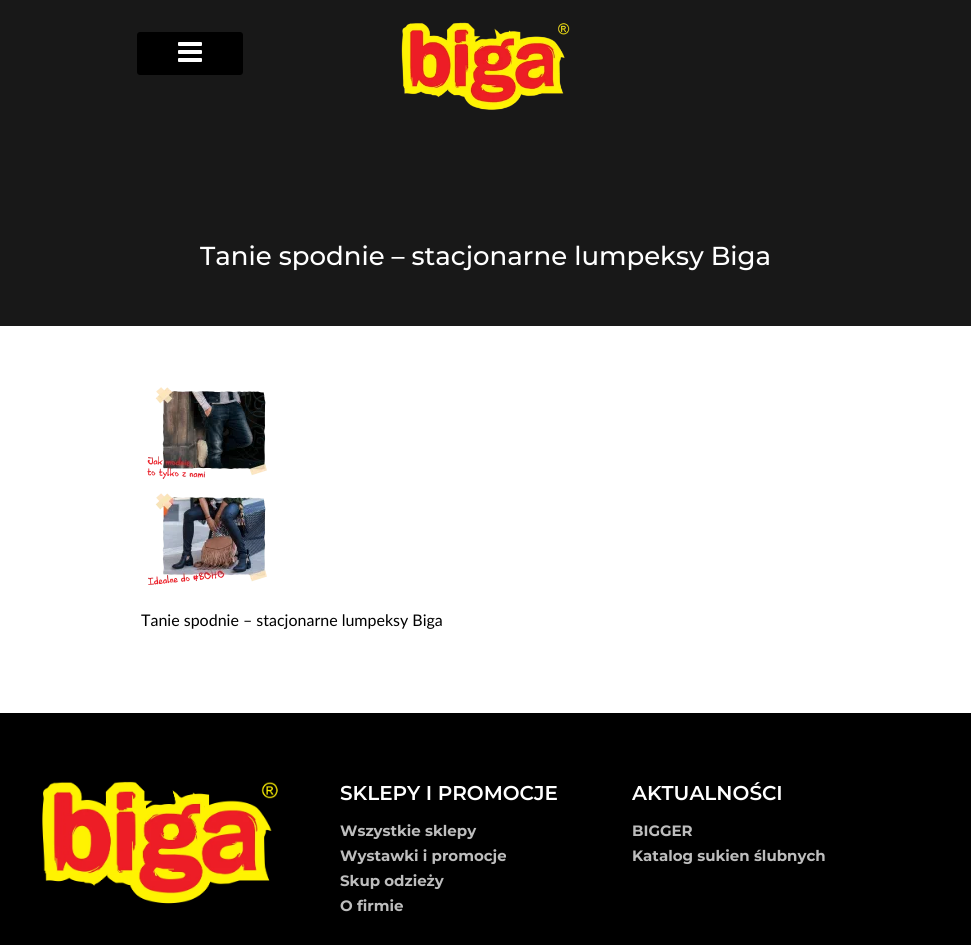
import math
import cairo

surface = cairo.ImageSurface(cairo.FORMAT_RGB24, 971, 945)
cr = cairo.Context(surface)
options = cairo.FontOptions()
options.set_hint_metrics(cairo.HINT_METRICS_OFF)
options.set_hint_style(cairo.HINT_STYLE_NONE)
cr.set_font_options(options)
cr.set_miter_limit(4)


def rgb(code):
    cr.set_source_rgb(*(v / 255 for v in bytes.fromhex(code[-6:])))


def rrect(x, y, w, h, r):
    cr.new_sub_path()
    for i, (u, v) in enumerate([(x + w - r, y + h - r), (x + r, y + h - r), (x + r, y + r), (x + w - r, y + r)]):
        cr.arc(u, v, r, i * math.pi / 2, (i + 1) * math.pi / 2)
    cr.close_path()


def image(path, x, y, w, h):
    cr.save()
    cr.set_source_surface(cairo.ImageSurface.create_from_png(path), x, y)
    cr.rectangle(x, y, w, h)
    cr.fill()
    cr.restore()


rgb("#ffffff")
cr.paint()
rgb("#181818")
cr.rectangle(0, 0, 971, 326)
cr.fill()
rgb("#000000")
rrect(137, 32, 106, 43, 3)
cr.fill()
image("img/1.png", 178, 42, 24, 20)
image("img/2.png", 401, 22, 169, 88)
image("img/3.png", 147, 387, 120, 198)
cr.rectangle(0, 713, 971, 232)
cr.fill()
image("img/4.png", 42, 781, 236, 123)
cr.select_font_face("Montserrat Medium")
cr.set_font_size(26)
rgb("#ffffff")
cr.move_to(200, 265)
cr.show_text("Tanie spodnie – stacjonarne lumpeksy Biga")
cr.select_font_face("Lato")
cr.set_font_size(16)
rgb("#000000")
cr.move_to(141, 626)
cr.show_text("Tanie spodnie – stacjonarne lumpeksy Biga")
cr.select_font_face("Montserrat SemiBold")
cr.set_font_size(20)
rgb("#ffffff")
cr.move_to(340, 800)
cr.show_text("SKLEPY I PROMOCJE")
cr.select_font_face("Montserrat", cairo.FONT_SLANT_NORMAL, cairo.FONT_WEIGHT_BOLD)
cr.set_font_size(15)
rgb("#bdbdbd")
for x, y, s in [
    (340, 836, "Wszystkie sklepy"),
    (340, 861, "Wystawki i promocje"),
    (340, 886, "Skup odzieży"),
    (340, 911, "O firmie"),
]:
    cr.move_to(x, y)
    cr.show_text(s)
cr.select_font_face("Montserrat SemiBold")
cr.set_font_size(20)
rgb("#ffffff")
cr.move_to(632, 800)
cr.show_text("AKTUALNOŚCI")
cr.select_font_face("Montserrat", cairo.FONT_SLANT_NORMAL, cairo.FONT_WEIGHT_BOLD)
cr.set_font_size(15)
rgb("#bdbdbd")
cr.move_to(632, 836)
cr.show_text("BIGGER")
cr.move_to(632, 861)
cr.show_text("Katalog sukien ślubnych")
surface.write_to_png("page.png")
